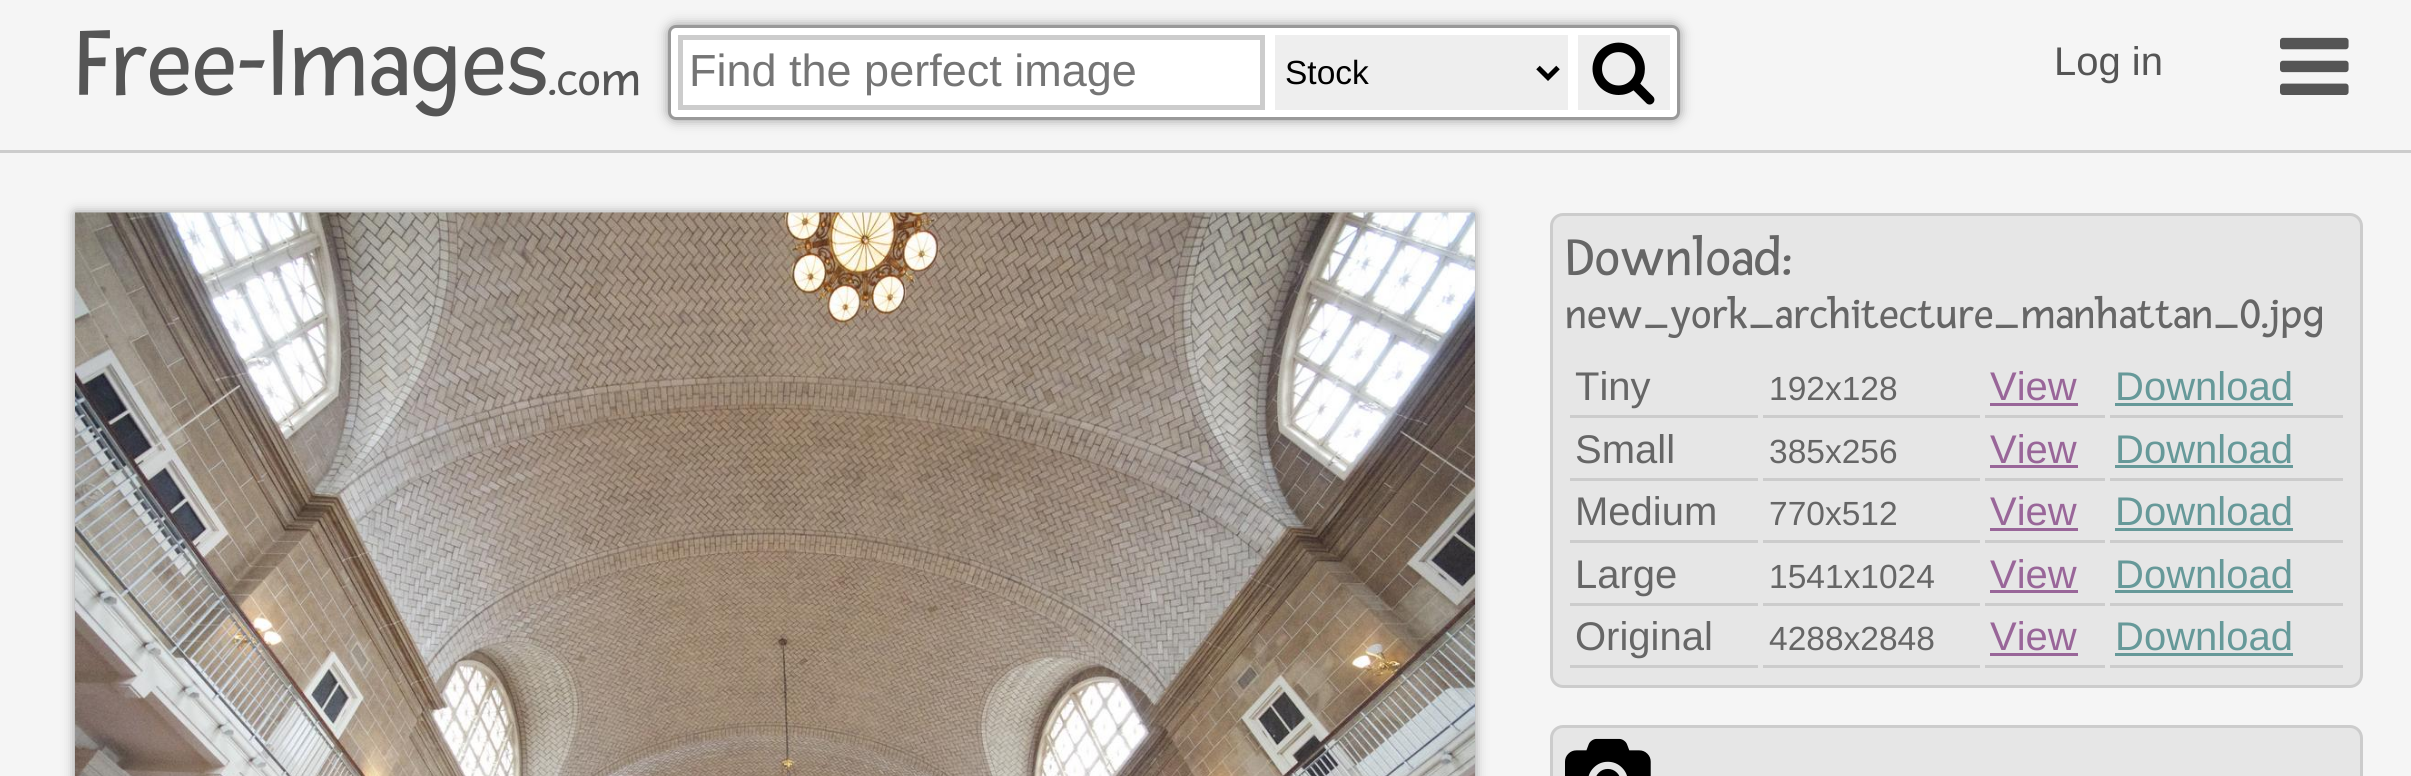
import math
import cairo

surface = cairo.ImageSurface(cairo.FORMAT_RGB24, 2411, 776)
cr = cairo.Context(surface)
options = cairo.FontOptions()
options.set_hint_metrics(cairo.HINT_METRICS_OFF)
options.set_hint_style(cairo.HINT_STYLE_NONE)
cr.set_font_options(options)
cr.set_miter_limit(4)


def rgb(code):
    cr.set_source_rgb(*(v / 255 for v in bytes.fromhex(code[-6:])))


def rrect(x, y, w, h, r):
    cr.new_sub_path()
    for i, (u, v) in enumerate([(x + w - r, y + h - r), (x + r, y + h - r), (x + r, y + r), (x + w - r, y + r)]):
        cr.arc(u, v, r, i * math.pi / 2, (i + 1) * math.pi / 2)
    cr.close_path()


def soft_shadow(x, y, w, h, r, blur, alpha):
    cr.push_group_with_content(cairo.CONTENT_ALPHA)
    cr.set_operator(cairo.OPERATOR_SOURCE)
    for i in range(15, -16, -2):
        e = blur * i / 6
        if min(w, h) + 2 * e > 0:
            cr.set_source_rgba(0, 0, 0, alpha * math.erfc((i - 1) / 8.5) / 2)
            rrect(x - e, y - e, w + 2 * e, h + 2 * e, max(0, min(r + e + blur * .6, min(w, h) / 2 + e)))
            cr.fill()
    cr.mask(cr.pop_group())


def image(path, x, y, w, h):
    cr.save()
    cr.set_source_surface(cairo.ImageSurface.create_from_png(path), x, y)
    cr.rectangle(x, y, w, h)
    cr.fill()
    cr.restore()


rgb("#f5f5f5")
cr.paint()
rgb("#cccccc")
cr.rectangle(0, 150, 2411, 3)
cr.fill()
rgb("#999999")
soft_shadow(668, 25, 1012, 95, 8, 6, 1)
rgb("#ffffff")
rrect(669.5, 26.5, 1009, 92, 6.5)
cr.fill_preserve()
rgb("#999999")
cr.set_line_width(3)
cr.stroke()
cr.rectangle(680.5, 37.5, 582, 70)
rgb("#cccccc")
cr.set_line_width(5)
cr.stroke()
rgb("#eeeeee")
cr.rectangle(1275, 35, 293, 75)
cr.fill()
cr.new_path()
cr.move_to(1538, 67.5)
cr.line_to(1548, 77.5)
cr.line_to(1558, 67.5)
rgb("#000000")
cr.stroke()
rgb("#eeeeee")
cr.rectangle(1578, 35, 92, 75)
cr.fill()
image("img/1.png", 1592, 42, 63, 63)
image("img/2.png", 2280, 37, 69, 58)
rgb("#999999")
soft_shadow(75, 213, 1400, 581, 0, 6, 1)
image("img/3.png", 75, 212, 1400, 564)
rgb("#e6e6e6")
rrect(1551.5, 214.5, 810, 472, 11.5)
cr.fill_preserve()
rgb("#cccccc")
cr.set_line_width(3)
cr.stroke()
for x, y, w, h, color in [
    (1570, 415, 188, 3, "#cccccc"),
    (1763, 415, 217, 3, "#cccccc"),
    (1985, 415, 120, 3, "#cccccc"),
    (1990, 403, 88, 3, "#996699"),
    (2110, 415, 233, 3, "#cccccc"),
    (2115, 403, 178, 3, "#669999"),
    (1570, 478, 188, 3, "#cccccc"),
    (1763, 478, 217, 3, "#cccccc"),
    (1985, 478, 120, 3, "#cccccc"),
    (1990, 465, 88, 3, "#996699"),
    (2110, 478, 233, 3, "#cccccc"),
    (2115, 465, 178, 3, "#669999"),
    (1570, 540, 188, 3, "#cccccc"),
    (1763, 540, 217, 3, "#cccccc"),
    (1985, 540, 120, 3, "#cccccc"),
    (1990, 528, 88, 3, "#996699"),
    (2110, 540, 233, 3, "#cccccc"),
    (2115, 528, 178, 3, "#669999"),
    (1570, 603, 188, 3, "#cccccc"),
    (1763, 603, 217, 3, "#cccccc"),
    (1985, 603, 120, 3, "#cccccc"),
    (1990, 590, 88, 3, "#996699"),
    (2110, 603, 233, 3, "#cccccc"),
    (2115, 590, 178, 3, "#669999"),
    (1570, 665, 188, 3, "#cccccc"),
    (1763, 665, 217, 3, "#cccccc"),
    (1985, 665, 120, 3, "#cccccc"),
    (1990, 653, 88, 3, "#996699"),
    (2110, 665, 233, 3, "#cccccc"),
    (2115, 653, 178, 3, "#669999"),
]:
    rgb(color)
    cr.rectangle(x, y, w, h)
    cr.fill()
rgb("#e6e6e6")
rrect(1551.5, 726.5, 810, 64, 11.5)
cr.fill_preserve()
rgb("#cccccc")
cr.stroke()
image("img/4.png", 1565, 738, 86, 38)
cr.select_font_face("Fresca")
cr.set_font_size(100)
rgb("#555555")
cr.move_to(75, 95)
cr.show_text("Free-Images")
cr.set_font_size(50)
cr.move_to(548, 95)
cr.show_text(".com")
cr.select_font_face("Liberation Sans")
cr.set_font_size(45)
rgb("#757575")
cr.move_to(689, 86)
cr.show_text("Find the perfect image")
cr.set_font_size(33.5)
rgb("#000000")
cr.move_to(1285, 84)
cr.show_text("Stock")
cr.set_font_size(40)
rgb("#555555")
cr.move_to(2054, 75)
cr.show_text("Log in")
cr.select_font_face("Fresca")
cr.set_font_size(55)
rgb("#666666")
cr.move_to(1565, 275)
cr.show_text("Download:")
cr.set_font_size(44)
cr.move_to(1565, 328)
cr.show_text("new_york_architecture_manhattan_0.jpg")
cr.select_font_face("Liberation Sans")
cr.set_font_size(40)
cr.move_to(1575, 400)
cr.show_text("Tiny")
cr.set_font_size(33.5)
cr.move_to(1769, 400)
cr.show_text("192x128")
cr.set_font_size(40)
rgb("#996699")
cr.move_to(1990, 400)
cr.show_text("View")
rgb("#669999")
cr.move_to(2115, 400)
cr.show_text("Download")
rgb("#666666")
cr.move_to(1575, 463)
cr.show_text("Small")
cr.set_font_size(33.5)
cr.move_to(1769, 463)
cr.show_text("385x256")
cr.set_font_size(40)
rgb("#996699")
cr.move_to(1990, 463)
cr.show_text("View")
rgb("#669999")
cr.move_to(2115, 463)
cr.show_text("Download")
rgb("#666666")
cr.move_to(1575, 525)
cr.show_text("Medium")
cr.set_font_size(33.5)
cr.move_to(1769, 525)
cr.show_text("770x512")
cr.set_font_size(40)
rgb("#996699")
cr.move_to(1990, 525)
cr.show_text("View")
rgb("#669999")
cr.move_to(2115, 525)
cr.show_text("Download")
rgb("#666666")
cr.move_to(1575, 588)
cr.show_text("Large")
cr.set_font_size(33.5)
cr.move_to(1769, 588)
cr.show_text("1541x1024")
cr.set_font_size(40)
rgb("#996699")
cr.move_to(1990, 588)
cr.show_text("View")
rgb("#669999")
cr.move_to(2115, 588)
cr.show_text("Download")
rgb("#666666")
cr.move_to(1575, 650)
cr.show_text("Original")
cr.set_font_size(33.5)
cr.move_to(1769, 650)
cr.show_text("4288x2848")
cr.set_font_size(40)
rgb("#996699")
cr.move_to(1990, 650)
cr.show_text("View")
rgb("#669999")
cr.move_to(2115, 650)
cr.show_text("Download")
surface.write_to_png("page.png")
